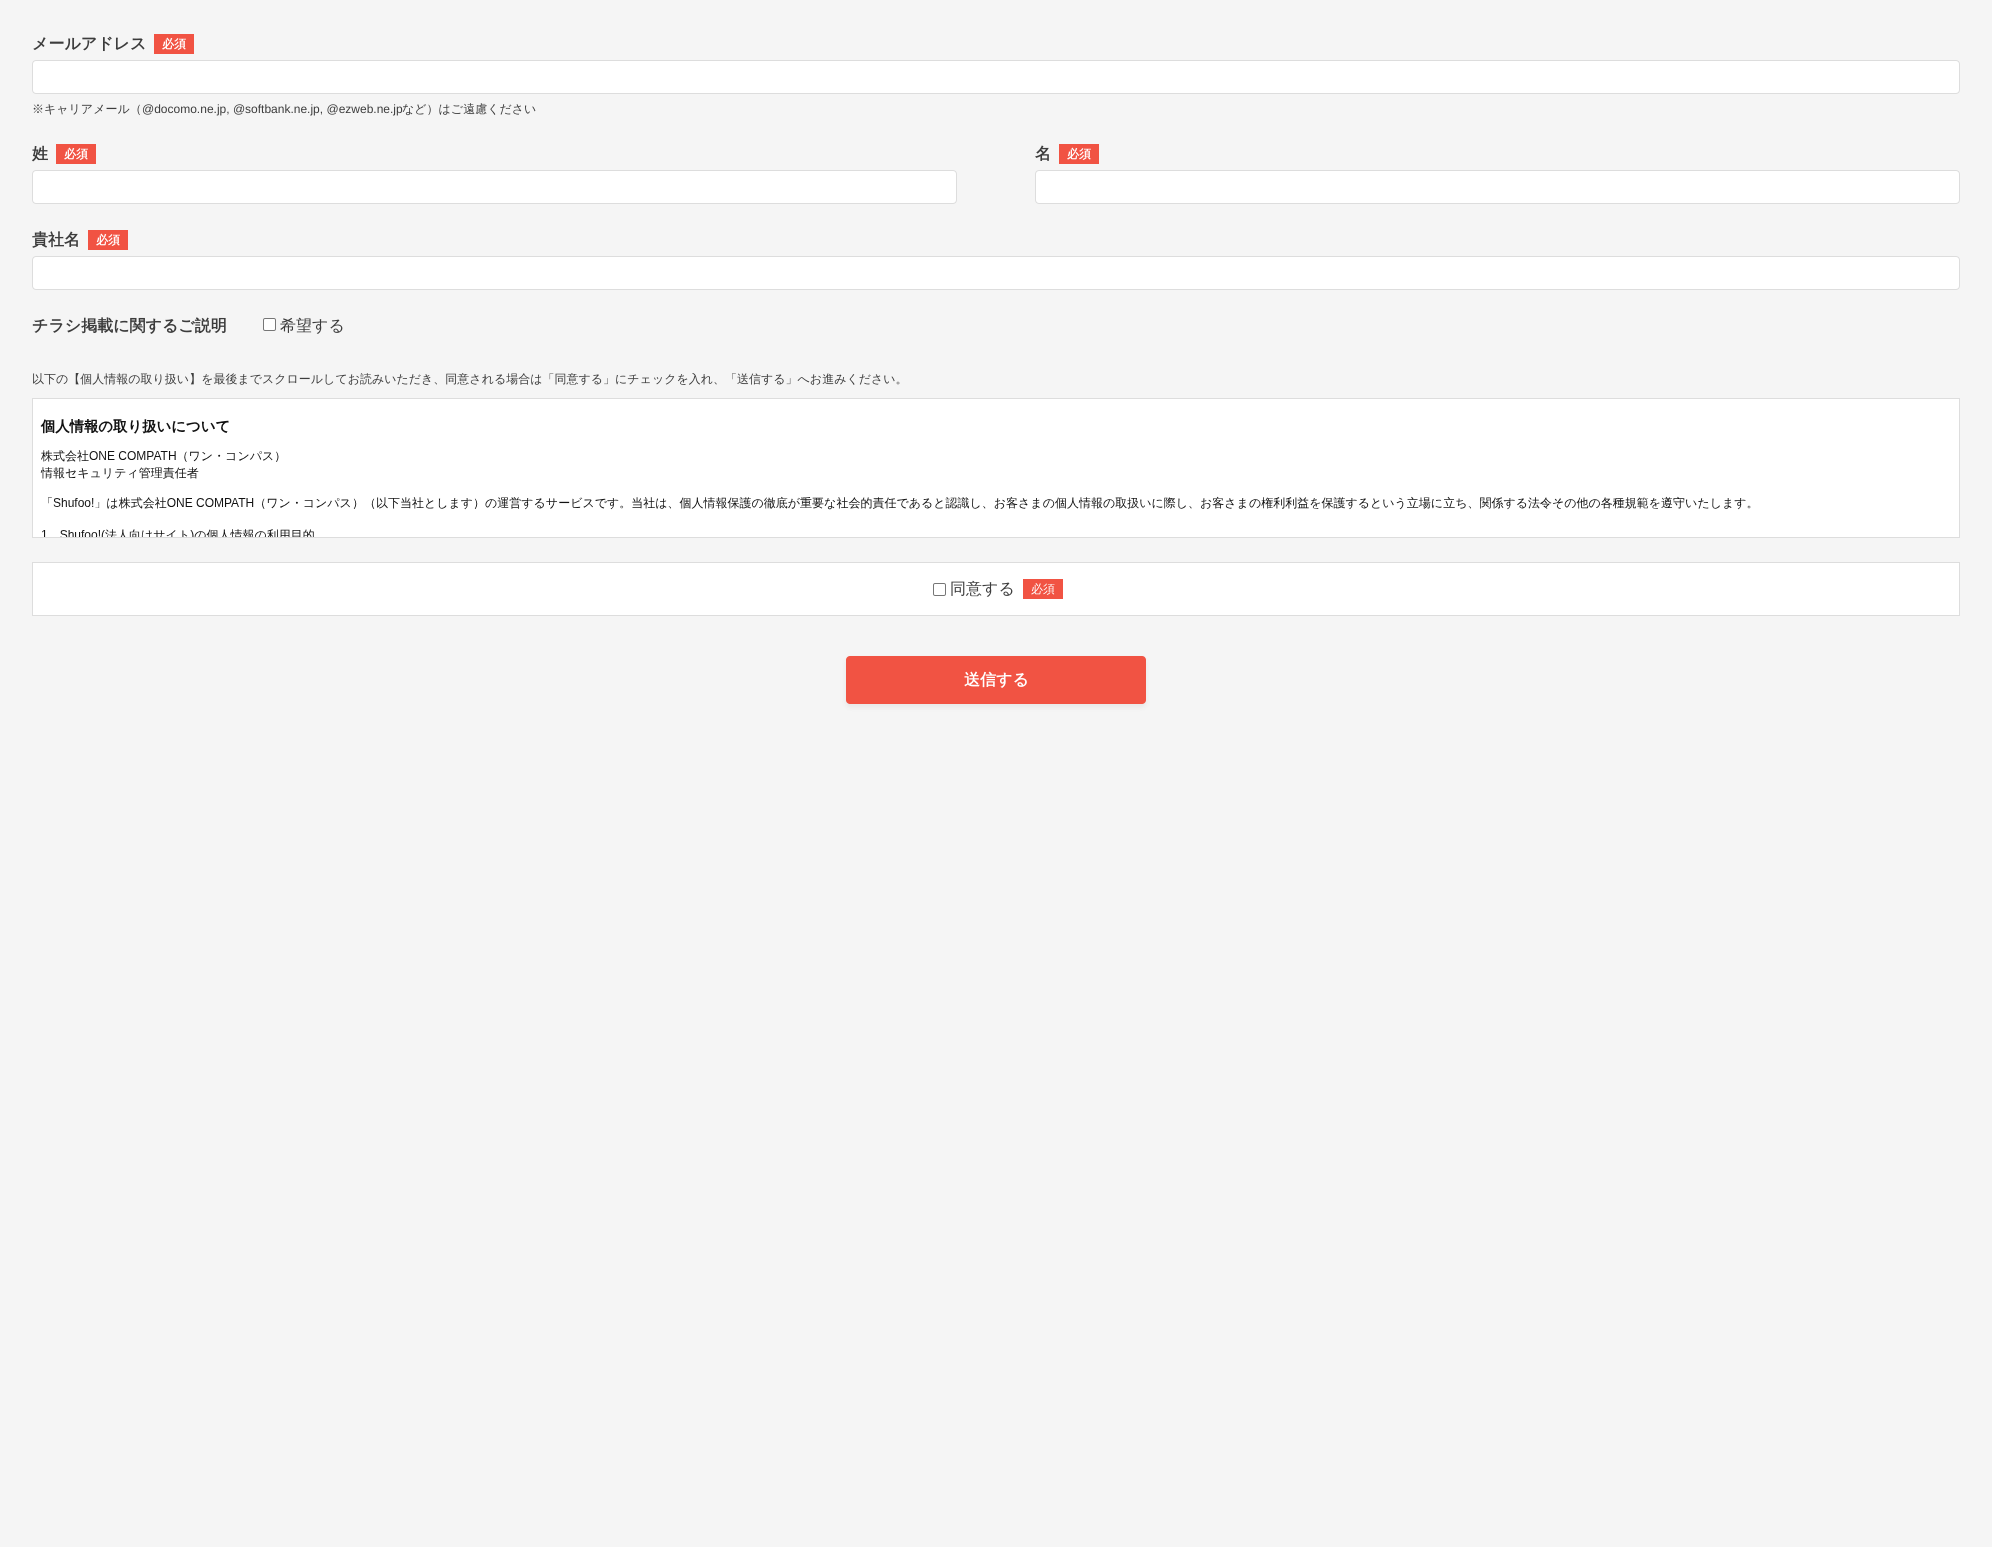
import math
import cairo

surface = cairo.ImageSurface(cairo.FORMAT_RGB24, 1992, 1547)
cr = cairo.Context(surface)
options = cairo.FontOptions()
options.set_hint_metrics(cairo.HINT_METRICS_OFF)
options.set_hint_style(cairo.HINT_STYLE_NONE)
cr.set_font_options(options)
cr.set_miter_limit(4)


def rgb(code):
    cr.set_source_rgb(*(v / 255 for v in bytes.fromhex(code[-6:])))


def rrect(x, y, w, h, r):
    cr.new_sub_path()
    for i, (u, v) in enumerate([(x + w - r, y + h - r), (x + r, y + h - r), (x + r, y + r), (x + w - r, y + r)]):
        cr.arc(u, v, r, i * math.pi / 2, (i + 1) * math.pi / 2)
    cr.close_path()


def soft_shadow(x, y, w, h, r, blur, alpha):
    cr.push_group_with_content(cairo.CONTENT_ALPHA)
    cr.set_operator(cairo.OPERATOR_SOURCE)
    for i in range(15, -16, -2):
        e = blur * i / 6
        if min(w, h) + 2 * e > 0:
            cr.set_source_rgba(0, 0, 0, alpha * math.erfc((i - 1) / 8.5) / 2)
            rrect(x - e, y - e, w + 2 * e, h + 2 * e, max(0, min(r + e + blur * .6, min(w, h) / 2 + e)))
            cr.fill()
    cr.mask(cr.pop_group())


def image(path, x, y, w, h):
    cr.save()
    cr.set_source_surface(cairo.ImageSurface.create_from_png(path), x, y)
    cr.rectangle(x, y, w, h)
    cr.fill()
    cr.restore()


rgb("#f5f5f5")
cr.paint()
rgb("#f15343")
cr.rectangle(154, 34, 40, 20)
cr.fill()
rgb("#ffffff")
rrect(32.5, 60.5, 1927, 33, 3.5)
cr.fill_preserve()
rgb("#dddddd")
cr.set_line_width(1)
cr.stroke()
rgb("#f15343")
cr.rectangle(56, 144, 40, 20)
cr.fill()
rgb("#ffffff")
rrect(32.5, 170.5, 924, 33, 3.5)
cr.fill_preserve()
rgb("#dddddd")
cr.stroke()
rgb("#f15343")
cr.rectangle(1059, 144, 40, 20)
cr.fill()
rgb("#ffffff")
rrect(1035.5, 170.5, 924, 33, 3.5)
cr.fill_preserve()
rgb("#dddddd")
cr.stroke()
rgb("#f15343")
cr.rectangle(88, 230, 40, 20)
cr.fill()
rgb("#ffffff")
rrect(32.5, 256.5, 1927, 33, 3.5)
cr.fill_preserve()
rgb("#dddddd")
cr.stroke()
rgb("#ffffff")
rrect(263.5, 318.5, 12, 12, 1.5)
cr.fill_preserve()
rgb("#767676")
cr.stroke()
rgb("#ffffff")
cr.rectangle(32.5, 398.5, 1927, 139)
cr.fill_preserve()
rgb("#dddddd")
cr.stroke()
image("img/1.png", 40, 419, 1711, 118)
rgb("#ffffff")
cr.rectangle(32.5, 562.5, 1927, 53)
cr.fill_preserve()
rgb("#dddddd")
cr.stroke()
rrect(933.5, 583.5, 12, 12, 1.5)
rgb("#767676")
cr.stroke()
rgb("#f15343")
cr.rectangle(1023, 579, 40, 20)
cr.fill()
rgb("#000000")
soft_shadow(846, 659, 300, 48, 4, 3, 0.06)
rgb("#f15343")
rrect(846, 656, 300, 48, 4)
cr.fill()
cr.select_font_face("WenQuanYi Zen Hei", cairo.FONT_SLANT_NORMAL, cairo.FONT_WEIGHT_BOLD)
cr.set_font_size(16)
rgb("#3c3c3c")
cr.move_to(32, 49)
cr.show_text("メールアドレス")
cr.set_font_size(12)
rgb("#ffffff")
cr.move_to(162, 48)
cr.show_text("必須")
cr.select_font_face("WenQuanYi Zen Hei Medium")
rgb("#3c3c3c")
cr.move_to(32, 113)
cr.show_text("※キャリアメール（")
cr.select_font_face("Liberation Sans")
cr.move_to(142, 113)
cr.show_text("@docomo.ne.jp, @softbank.ne.jp, @ezweb.ne.jp")
cr.select_font_face("WenQuanYi Zen Hei Medium")
cr.move_to(402, 113)
cr.show_text("など）はご遠慮ください")
cr.select_font_face("WenQuanYi Zen Hei", cairo.FONT_SLANT_NORMAL, cairo.FONT_WEIGHT_BOLD)
cr.set_font_size(16)
cr.move_to(32, 159)
cr.show_text("姓")
cr.set_font_size(12)
rgb("#ffffff")
cr.move_to(64, 158)
cr.show_text("必須")
cr.set_font_size(16)
rgb("#3c3c3c")
cr.move_to(1035, 159)
cr.show_text("名")
cr.set_font_size(12)
rgb("#ffffff")
cr.move_to(1067, 158)
cr.show_text("必須")
cr.set_font_size(16)
rgb("#3c3c3c")
cr.move_to(32, 245)
cr.show_text("貴社名")
cr.set_font_size(12)
rgb("#ffffff")
cr.move_to(96, 244)
cr.show_text("必須")
cr.set_font_size(16)
rgb("#3c3c3c")
cr.move_to(32, 331)
cr.show_text("チラシ掲載に関するご説明")
cr.select_font_face("WenQuanYi Zen Hei Medium")
cr.move_to(280, 331)
cr.show_text("希望する")
cr.set_font_size(12)
cr.move_to(32, 383)
cr.show_text("以下の【個人情報の取り扱い】を最後までスクロールしてお読みいただき、同意される場合は「同意する」にチェックを入れ、「送信する」へお進みください。")
cr.set_font_size(16)
cr.move_to(950, 594)
cr.show_text("同意する")
cr.set_font_size(12)
rgb("#ffffff")
cr.move_to(1031, 593)
cr.show_text("必須")
cr.select_font_face("WenQuanYi Zen Hei", cairo.FONT_SLANT_NORMAL, cairo.FONT_WEIGHT_BOLD)
cr.set_font_size(16)
cr.move_to(964, 685)
cr.show_text("送信する")
surface.write_to_png("page.png")
